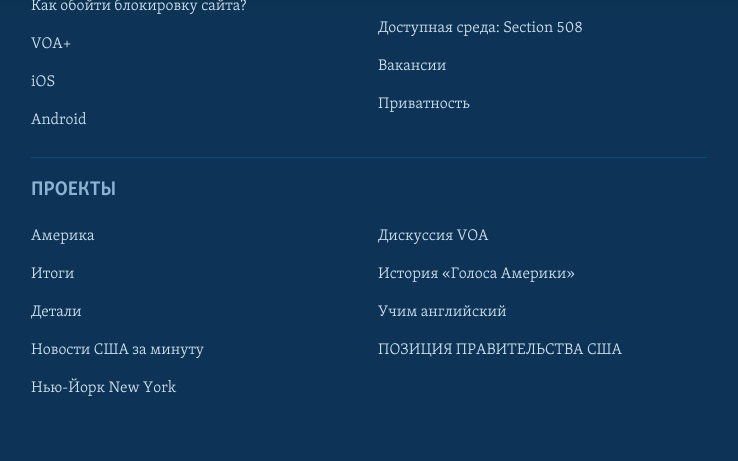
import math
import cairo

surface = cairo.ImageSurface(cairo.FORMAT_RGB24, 738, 461)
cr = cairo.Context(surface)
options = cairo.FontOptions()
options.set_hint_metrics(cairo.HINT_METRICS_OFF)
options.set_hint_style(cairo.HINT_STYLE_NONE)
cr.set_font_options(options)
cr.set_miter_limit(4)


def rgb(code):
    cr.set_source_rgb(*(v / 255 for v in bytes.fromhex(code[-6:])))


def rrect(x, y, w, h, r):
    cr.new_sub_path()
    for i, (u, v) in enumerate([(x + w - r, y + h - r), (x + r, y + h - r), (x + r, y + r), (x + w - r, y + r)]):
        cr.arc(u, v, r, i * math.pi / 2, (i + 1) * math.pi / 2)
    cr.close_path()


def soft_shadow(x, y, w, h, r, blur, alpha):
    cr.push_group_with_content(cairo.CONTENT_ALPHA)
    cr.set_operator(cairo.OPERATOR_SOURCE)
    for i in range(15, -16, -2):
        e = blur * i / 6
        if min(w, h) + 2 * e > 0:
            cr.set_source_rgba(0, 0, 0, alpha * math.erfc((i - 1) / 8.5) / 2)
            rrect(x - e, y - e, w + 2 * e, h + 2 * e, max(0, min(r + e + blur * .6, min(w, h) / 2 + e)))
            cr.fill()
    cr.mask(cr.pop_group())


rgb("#0d3456")
cr.paint()
rgb("#000000")
soft_shadow(0, -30, 738, 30, 0, 10, 0.1)
rgb("#134976")
cr.rectangle(31, 157, 676, 1)
cr.fill()
cr.select_font_face("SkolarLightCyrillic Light")
cr.set_font_size(15.75)
rgb("#d1e1ee")
for x, y, s in [
    (31, 10, "Как обойти блокировку сайта?"),
    (378, 32, "Доступная среда: Section 508"),
    (31, 48, "VOA+"),
    (378, 70, "Вакансии"),
    (31, 86, "iOS"),
    (378, 108, "Приватность"),
    (31, 124, "Android"),
]:
    cr.move_to(x, y)
    cr.show_text(s)
cr.select_font_face("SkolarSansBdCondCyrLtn", cairo.FONT_SLANT_NORMAL, cairo.FONT_WEIGHT_BOLD)
cr.set_font_size(20.25)
rgb("#8db3d4")
cr.move_to(31, 195)
cr.show_text("ПРОЕКТЫ")
cr.select_font_face("SkolarLightCyrillic Light")
cr.set_font_size(15.75)
rgb("#d1e1ee")
for x, y, s in [
    (31, 240, "Америка"),
    (378, 240, "Дискуссия VOA"),
    (31, 278, "Итоги"),
    (378, 278, "История «Голоса Америки»"),
    (31, 316, "Детали"),
    (378, 316, "Учим английский"),
    (31, 354, "Новости США за минуту"),
    (378, 354, "ПОЗИЦИЯ ПРАВИТЕЛЬСТВА США"),
    (31, 392, "Нью-Йорк New York"),
]:
    cr.move_to(x, y)
    cr.show_text(s)
surface.write_to_png("page.png")
